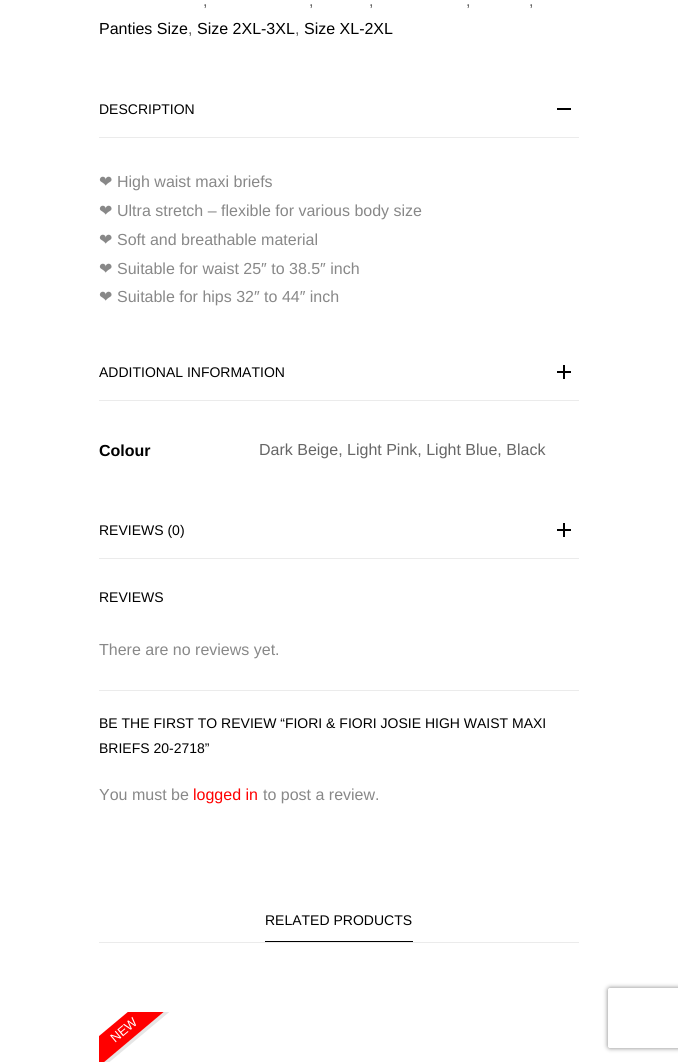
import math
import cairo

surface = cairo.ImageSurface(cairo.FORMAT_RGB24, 678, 1062)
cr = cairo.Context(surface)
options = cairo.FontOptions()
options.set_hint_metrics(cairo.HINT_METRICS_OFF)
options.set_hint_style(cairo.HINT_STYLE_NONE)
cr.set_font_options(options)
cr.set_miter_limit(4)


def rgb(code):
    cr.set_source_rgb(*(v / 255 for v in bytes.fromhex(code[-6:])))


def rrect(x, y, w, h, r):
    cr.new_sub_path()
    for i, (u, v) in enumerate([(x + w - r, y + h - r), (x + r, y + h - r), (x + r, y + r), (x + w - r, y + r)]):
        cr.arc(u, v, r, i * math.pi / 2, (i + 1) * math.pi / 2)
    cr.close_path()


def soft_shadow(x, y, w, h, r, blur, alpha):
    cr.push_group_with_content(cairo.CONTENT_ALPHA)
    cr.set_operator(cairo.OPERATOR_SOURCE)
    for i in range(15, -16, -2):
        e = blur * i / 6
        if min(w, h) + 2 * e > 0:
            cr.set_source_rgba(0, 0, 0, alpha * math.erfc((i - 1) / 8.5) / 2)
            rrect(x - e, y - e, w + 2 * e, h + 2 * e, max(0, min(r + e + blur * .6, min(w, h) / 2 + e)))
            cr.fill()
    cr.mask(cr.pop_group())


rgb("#ffffff")
cr.paint()
for x, y, w, h, color in [
    (99, 137, 480, 1, "#ebebeb"),
    (557, 108, 14, 2, "#000000"),
    (99, 400, 480, 1, "#ebebeb"),
    (557, 371, 14, 2, "#000000"),
    (563, 365, 2, 14, "#000000"),
    (99, 558, 480, 1, "#ebebeb"),
    (557, 529, 14, 2, "#000000"),
    (563, 523, 2, 14, "#000000"),
    (99, 690, 480, 1, "#ebebeb"),
    (265, 941, 148, 1, "#000000"),
    (99, 942, 480, 1, "#ebebeb"),
]:
    rgb(color)
    cr.rectangle(x, y, w, h)
    cr.fill()
cr.save()
cr.rectangle(99, 1012, 361, 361)
cr.clip()
rgb("#e6e6e6")
cr.new_path()
cr.move_to(62, 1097)
cr.line_to(64, 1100)
cr.line_to(210, 978)
cr.line_to(195, 961)
cr.line_to(192, 963)
cr.line_to(204, 978)
cr.close_path()
cr.fill()
rgb("#ff0000")
cr.new_path()
cr.move_to(44, 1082)
cr.line_to(190, 960)
cr.line_to(204, 978)
cr.line_to(59, 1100)
cr.close_path()
cr.fill()
cr.restore()
cr.save()
cr.set_fill_rule(cairo.FILL_RULE_EVEN_ODD)
cr.new_path()
cr.move_to(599, 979)
cr.line_to(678, 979)
cr.line_to(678, 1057)
cr.line_to(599, 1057)
cr.close_path()
cr.move_to(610, 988)
cr.line_to(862, 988)
cr.curve_to(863, 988, 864, 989, 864, 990)
cr.line_to(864, 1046)
cr.curve_to(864, 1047, 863, 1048, 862, 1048)
cr.line_to(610, 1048)
cr.curve_to(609, 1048, 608, 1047, 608, 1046)
cr.line_to(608, 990)
cr.curve_to(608, 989, 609, 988, 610, 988)
cr.close_path()
cr.clip()
rgb("#808080")
soft_shadow(608, 988, 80, 60, 2, 2.5, 1)
cr.restore()
cr.select_font_face("Liberation Sans")
cr.set_font_size(16)
rgb("#666666")
for x, y, s in [
    (203, 6, ","),
    (309, 6, ","),
    (369, 6, ","),
    (466, 6, ","),
    (529, 6, ","),
]:
    cr.move_to(x, y)
    cr.show_text(s)
rgb("#000000")
cr.move_to(99, 34)
cr.show_text("Panties Size")
rgb("#666666")
cr.move_to(188, 34)
cr.show_text(",")
rgb("#000000")
cr.move_to(197, 34)
cr.show_text("Size 2XL-3XL")
rgb("#666666")
cr.move_to(295, 34)
cr.show_text(",")
rgb("#000000")
cr.move_to(304, 34)
cr.show_text("Size XL-2XL")
cr.set_font_size(14)
cr.move_to(99, 114)
cr.show_text("DESCRIPTION")
cr.select_font_face("DejaVu Sans")
cr.set_font_size(16)
rgb("#888888")
cr.move_to(99, 187)
cr.show_text("❤")
cr.select_font_face("Liberation Sans")
cr.move_to(117, 187)
cr.show_text("High waist maxi briefs")
cr.select_font_face("DejaVu Sans")
cr.move_to(99, 216)
cr.show_text("❤")
cr.select_font_face("Liberation Sans")
cr.move_to(117, 216)
cr.show_text("Ultra stretch – flexible for various body size")
cr.select_font_face("DejaVu Sans")
cr.move_to(99, 245)
cr.show_text("❤")
cr.select_font_face("Liberation Sans")
cr.move_to(117, 245)
cr.show_text("Soft and breathable material")
cr.select_font_face("DejaVu Sans")
cr.move_to(99, 274)
cr.show_text("❤")
cr.select_font_face("Liberation Sans")
cr.move_to(117, 274)
cr.show_text("Suitable for waist 25″ to 38.5″ inch")
cr.select_font_face("DejaVu Sans")
cr.move_to(99, 302)
cr.show_text("❤")
cr.select_font_face("Liberation Sans")
cr.move_to(117, 302)
cr.show_text("Suitable for hips 32″ to 44″ inch")
cr.set_font_size(14)
rgb("#000000")
cr.move_to(99, 377)
cr.show_text("ADDITIONAL INFORMATION")
cr.select_font_face("Liberation Sans", cairo.FONT_SLANT_NORMAL, cairo.FONT_WEIGHT_BOLD)
cr.set_font_size(16)
cr.move_to(99, 456)
cr.show_text("Colour")
cr.select_font_face("Liberation Sans")
rgb("#666666")
cr.move_to(259, 455)
cr.show_text("Dark Beige, Light Pink, Light Blue, Black")
cr.set_font_size(14)
rgb("#000000")
cr.move_to(99, 535)
cr.show_text("REVIEWS (0)")
cr.move_to(99, 602)
cr.show_text("REVIEWS")
cr.set_font_size(16)
rgb("#888888")
cr.move_to(99, 655)
cr.show_text("There are no reviews yet.")
cr.set_font_size(14)
rgb("#000000")
cr.move_to(99, 728)
cr.show_text("BE THE FIRST TO REVIEW “FIORI & FIORI JOSIE HIGH WAIST MAXI")
cr.move_to(99, 753)
cr.show_text("BRIEFS 20-2718”")
cr.set_font_size(16)
rgb("#888888")
cr.move_to(99, 800)
cr.show_text("You must be")
rgb("#ff0000")
cr.move_to(193, 800)
cr.show_text("logged in")
rgb("#888888")
cr.move_to(263, 800)
cr.show_text("to post a review.")
cr.set_font_size(14)
rgb("#000000")
cr.move_to(265, 925)
cr.show_text("RELATED PRODUCTS")
cr.set_font_size(13)
rgb("#ffffff")
cr.save()
cr.translate(115, 1043)
cr.rotate(-40 * math.pi / 180)
cr.move_to(0, 0)
cr.show_text("NEW")
cr.restore()
surface.write_to_png("page.png")
